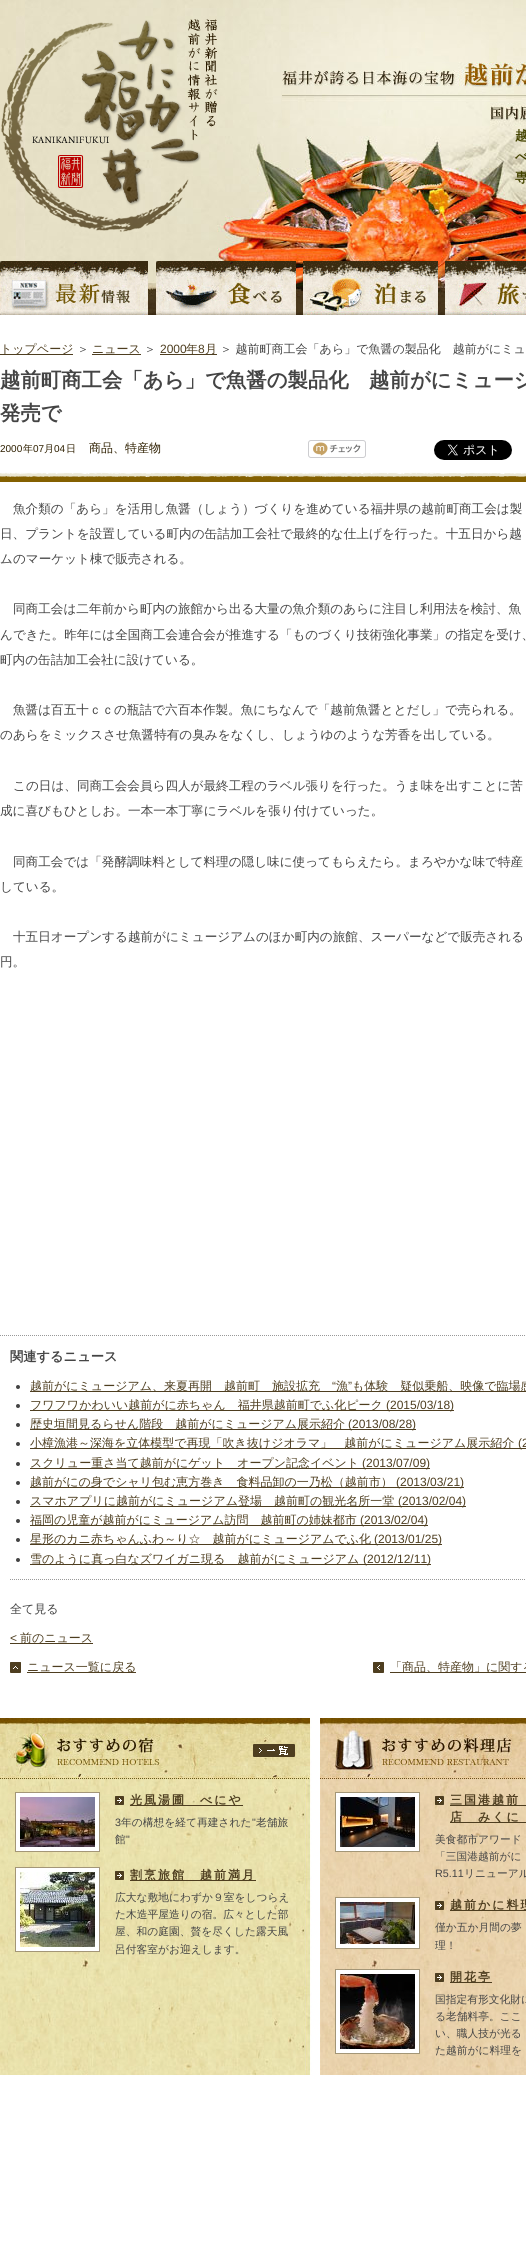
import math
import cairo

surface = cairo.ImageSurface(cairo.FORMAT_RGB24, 526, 2242)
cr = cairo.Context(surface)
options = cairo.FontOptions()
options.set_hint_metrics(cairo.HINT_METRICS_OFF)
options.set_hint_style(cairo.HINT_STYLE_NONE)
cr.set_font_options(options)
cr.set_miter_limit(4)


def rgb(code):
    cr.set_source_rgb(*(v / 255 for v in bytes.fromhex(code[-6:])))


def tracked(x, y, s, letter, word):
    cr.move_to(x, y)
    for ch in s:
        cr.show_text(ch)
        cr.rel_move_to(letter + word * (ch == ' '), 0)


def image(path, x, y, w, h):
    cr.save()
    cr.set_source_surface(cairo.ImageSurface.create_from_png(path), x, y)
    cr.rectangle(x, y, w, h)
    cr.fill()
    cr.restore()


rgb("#ffffff")
cr.paint()
image("img/1.png", 0, 0, 25, 261)
image("img/2.png", 25, 0, 501, 315)
image("img/3.png", 1, 19, 217, 213)
image("img/4.png", 282, 62, 244, 64)
image("img/5.png", 0, 261, 148, 54)
image("img/6.png", 156, 261, 140, 54)
image("img/7.png", 303, 261, 135, 54)
image("img/8.png", 445, 261, 81, 54)
for x, y, w, h, color in [
    (0, 354, 73, 1, "#4e3e20"),
    (92, 354, 49, 1, "#4e3e20"),
    (160, 354, 57, 1, "#4e3e20"),
]:
    rgb(color)
    cr.rectangle(x, y, w, h)
    cr.fill()
image("img/9.png", 308, 440, 58, 18)
image("img/10.png", 434, 440, 78, 20)
image("img/11.png", 0, 472, 526, 10)
cr.new_path()
cr.move_to(0, 1335.5)
cr.line_to(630, 1335.5)
rgb("#999999")
cr.set_line_width(1)
cr.set_dash([1, 1])
cr.stroke()
cr.new_path()
cr.move_to(10, 1579.5)
cr.line_to(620, 1579.5)
cr.stroke()
rgb("#4e3e20")
cr.rectangle(30, 1391, 496, 1)
cr.fill()
rgb("#444444")
cr.arc(18, 1387, 2, 0, 2 * math.pi)
cr.fill()
cr.arc(18, 1406, 2, 0, 2 * math.pi)
cr.fill()
rgb("#4e3e20")
cr.rectangle(30, 1410, 424, 1)
cr.fill()
rgb("#444444")
cr.arc(18, 1425, 2, 0, 2 * math.pi)
cr.fill()
rgb("#4e3e20")
cr.rectangle(30, 1429, 386, 1)
cr.fill()
rgb("#444444")
cr.arc(18, 1444, 2, 0, 2 * math.pi)
cr.fill()
rgb("#4e3e20")
cr.rectangle(30, 1448, 496, 1)
cr.fill()
rgb("#444444")
cr.arc(18, 1464, 2, 0, 2 * math.pi)
cr.fill()
rgb("#4e3e20")
cr.rectangle(30, 1468, 400, 1)
cr.fill()
rgb("#444444")
cr.arc(18, 1483, 2, 0, 2 * math.pi)
cr.fill()
rgb("#4e3e20")
cr.rectangle(30, 1487, 434, 1)
cr.fill()
rgb("#444444")
cr.arc(18, 1502, 2, 0, 2 * math.pi)
cr.fill()
rgb("#4e3e20")
cr.rectangle(30, 1506, 436, 1)
cr.fill()
rgb("#444444")
cr.arc(18, 1521, 2, 0, 2 * math.pi)
cr.fill()
rgb("#4e3e20")
cr.rectangle(30, 1525, 398, 1)
cr.fill()
rgb("#444444")
cr.arc(18, 1540, 2, 0, 2 * math.pi)
cr.fill()
rgb("#4e3e20")
cr.rectangle(30, 1544, 412, 1)
cr.fill()
rgb("#444444")
cr.arc(18, 1560, 2, 0, 2 * math.pi)
cr.fill()
rgb("#4e3e20")
cr.rectangle(30, 1564, 401, 1)
cr.fill()
cr.rectangle(10, 1643, 83, 1)
cr.fill()
image("img/12.png", 10, 1662, 11, 11)
cr.rectangle(27, 1672, 109, 1)
cr.fill()
image("img/13.png", 373, 1662, 11, 11)
cr.rectangle(390, 1672, 136, 1)
cr.fill()
image("img/14.png", 0, 1718, 526, 357)
image("img/15.png", 0, 1718, 310, 61)
image("img/16.png", 253, 1744, 42, 13)
rgb("#ffffff")
cr.rectangle(15.5, 1792.5, 84, 59)
cr.fill_preserve()
rgb("#a39677")
cr.set_dash([])
cr.stroke()
image("img/17.png", 20, 1797, 75, 50)
image("img/18.png", 115, 1796, 9, 9)
rgb("#4e3e20")
cr.rectangle(130, 1805, 113, 1)
cr.fill()
rgb("#ffffff")
cr.rectangle(15.5, 1867.5, 84, 84)
cr.fill_preserve()
rgb("#a39677")
cr.stroke()
image("img/19.png", 20, 1872, 75, 75)
image("img/18.png", 115, 1871, 9, 9)
rgb("#4e3e20")
cr.rectangle(130, 1880, 126, 1)
cr.fill()
image("img/20.png", 320, 1718, 206, 61)
rgb("#ffffff")
cr.rectangle(335.5, 1792.5, 84, 59)
cr.fill_preserve()
rgb("#a39677")
cr.stroke()
image("img/21.png", 340, 1797, 75, 50)
image("img/18.png", 435, 1796, 9, 9)
rgb("#4e3e20")
cr.rectangle(450, 1805, 76, 1)
cr.fill()
cr.rectangle(450, 1822, 76, 1)
cr.fill()
rgb("#ffffff")
cr.rectangle(335.5, 1897.5, 84, 51)
cr.fill_preserve()
rgb("#a39677")
cr.stroke()
image("img/22.png", 340, 1902, 75, 42)
image("img/18.png", 435, 1901, 9, 9)
rgb("#4e3e20")
cr.rectangle(450, 1910, 76, 1)
cr.fill()
rgb("#ffffff")
cr.rectangle(335.5, 1969.5, 84, 84)
cr.fill_preserve()
rgb("#a39677")
cr.stroke()
image("img/23.png", 340, 1974, 75, 75)
image("img/18.png", 435, 1973, 9, 9)
rgb("#4e3e20")
cr.rectangle(450, 1982, 42, 1)
cr.fill()
cr.select_font_face("WenQuanYi Zen Hei", cairo.FONT_SLANT_NORMAL, cairo.FONT_WEIGHT_BOLD)
cr.set_font_size(13)
rgb("#444400")
for x, y, s in [
    (515, 140, "越"),
    (515, 161, "べ"),
    (515, 182, "専"),
]:
    cr.move_to(x, y)
    cr.show_text(s)
cr.select_font_face("WenQuanYi Zen Hei Medium")
cr.set_font_size(12)
rgb("#4e3e20")
cr.move_to(0, 353)
cr.show_text("トップページ")
rgb("#444444")
cr.move_to(77, 353)
cr.show_text("＞")
rgb("#4e3e20")
cr.move_to(92, 353)
cr.show_text("ニュース")
rgb("#444444")
cr.move_to(144, 353)
cr.show_text("＞")
cr.select_font_face("Liberation Sans")
rgb("#4e3e20")
cr.move_to(160, 353)
cr.show_text("2000")
cr.select_font_face("WenQuanYi Zen Hei Medium")
cr.move_to(186, 353)
cr.show_text("年")
cr.select_font_face("Liberation Sans")
cr.move_to(198, 353)
cr.show_text("8")
cr.select_font_face("WenQuanYi Zen Hei Medium")
cr.move_to(205, 353)
cr.show_text("月")
rgb("#444444")
cr.move_to(220, 353)
cr.show_text("＞ 越前町商工会「あら」で魚醤の製品化　越前がにミュ")
cr.select_font_face("WenQuanYi Zen Hei", cairo.FONT_SLANT_NORMAL, cairo.FONT_WEIGHT_BOLD)
cr.set_font_size(20.4)
cr.move_to(0, 387)
cr.show_text("越前町商工会「あら」で魚醤の製品化　越前がにミュージ")
cr.move_to(0, 420)
cr.show_text("発売で")
cr.select_font_face("Liberation Sans")
cr.set_font_size(10)
rgb("#2e1f00")
cr.move_to(0, 452)
cr.show_text("2000")
cr.select_font_face("WenQuanYi Zen Hei Medium")
cr.move_to(23, 452)
cr.show_text("年")
cr.select_font_face("Liberation Sans")
cr.move_to(33, 452)
cr.show_text("07")
cr.select_font_face("WenQuanYi Zen Hei Medium")
cr.move_to(44, 452)
cr.show_text("月")
cr.select_font_face("Liberation Sans")
cr.move_to(54, 452)
cr.show_text("04")
cr.select_font_face("WenQuanYi Zen Hei Medium")
cr.move_to(66, 452)
cr.show_text("日")
cr.set_font_size(12)
cr.move_to(89, 452)
cr.show_text("商品、特産物")
cr.set_font_size(12.6)
rgb("#444444")
for x, y, s in [
    (13, 513, "魚介類の「あら」を活用し魚醤（しょう）づくりを進めている福井県の越前町商工会は製"),
    (0, 538, "日、プラントを設置している町内の缶詰加工会社で最終的な仕上げを行った。十五日から越"),
    (0, 563, "ムのマーケット棟で販売される。"),
    (13, 613, "同商工会は二年前から町内の旅館から出る大量の魚介類のあらに注目し利用法を検討、魚"),
    (0, 639, "んできた。昨年には全国商工会連合会が推進する「ものづくり技術強化事業」の指定を受け、"),
    (0, 664, "町内の缶詰加工会社に設けている。"),
    (13, 714, "魚醤は百五十ｃｃの瓶詰で六百本作製。魚にちなんで「越前魚醤ととだし」で売られる。"),
    (0, 739, "のあらをミックスさせ魚醤特有の臭みをなくし、しょうゆのような芳香を出している。"),
    (13, 790, "この日は、同商工会会員ら四人が最終工程のラベル張りを行った。うま味を出すことに苦"),
    (0, 815, "成に喜びもひとしお。一本一本丁寧にラベルを張り付けていった。"),
    (13, 866, "同商工会では「発酵調味料として料理の隠し味に使ってもらえたら。まろやかな味で特産"),
    (0, 891, "している。"),
    (13, 941, "十五日オープンする越前がにミュージアムのほか町内の旅館、スーパーなどで販売される"),
    (0, 966, "円。"),
]:
    cr.move_to(x, y)
    cr.show_text(s)
cr.select_font_face("WenQuanYi Zen Hei", cairo.FONT_SLANT_NORMAL, cairo.FONT_WEIGHT_BOLD)
cr.set_font_size(13.25)
cr.move_to(10, 1361)
cr.show_text("関連するニュース")
cr.select_font_face("WenQuanYi Zen Hei Medium")
cr.set_font_size(12)
rgb("#4e3e20")
cr.move_to(30, 1390)
cr.show_text("越前がにミュージアム、来夏再開　越前町　施設拡充")
cr.select_font_face("Liberation Sans")
cr.move_to(332, 1390)
cr.show_text("“")
cr.select_font_face("WenQuanYi Zen Hei Medium")
cr.move_to(336, 1390)
cr.show_text("漁")
cr.select_font_face("Liberation Sans")
cr.move_to(348, 1390)
cr.show_text("”")
cr.select_font_face("WenQuanYi Zen Hei Medium")
cr.move_to(352, 1390)
cr.show_text("も体験　疑似乗船、映像で臨場感")
cr.move_to(30, 1409)
cr.show_text("フワフワかわいい越前がに赤ちゃん　福井県越前町でふ化ピーク")
cr.select_font_face("Liberation Sans")
cr.move_to(386, 1409)
cr.show_text("(2015/03/18)")
cr.select_font_face("WenQuanYi Zen Hei Medium")
cr.move_to(30, 1428)
cr.show_text("歴史垣間見るらせん階段　越前がにミュージアム展示紹介")
cr.select_font_face("Liberation Sans")
cr.move_to(348, 1428)
cr.show_text("(2013/08/28)")
cr.select_font_face("WenQuanYi Zen Hei Medium")
cr.move_to(30, 1447)
cr.show_text("小樟漁港～深海を立体模型で再現「吹き抜けジオラマ」　越前がにミュージアム展示紹介")
cr.select_font_face("Liberation Sans")
cr.move_to(518, 1447)
cr.show_text("(2")
cr.select_font_face("WenQuanYi Zen Hei Medium")
cr.move_to(30, 1467)
cr.show_text("スクリュー重さ当て越前がにゲット　オープン記念イベント")
cr.select_font_face("Liberation Sans")
cr.move_to(362, 1467)
cr.show_text("(2013/07/09)")
cr.select_font_face("WenQuanYi Zen Hei Medium")
cr.move_to(30, 1486)
cr.show_text("越前がにの身でシャリ包む恵方巻き　食料品卸の一乃松（越前市）")
cr.select_font_face("Liberation Sans")
cr.move_to(396, 1486)
cr.show_text("(2013/03/21)")
cr.select_font_face("WenQuanYi Zen Hei Medium")
cr.move_to(30, 1505)
cr.show_text("スマホアプリに越前がにミュージアム登場　越前町の観光名所一堂")
cr.select_font_face("Liberation Sans")
cr.move_to(398, 1505)
cr.show_text("(2013/02/04)")
cr.select_font_face("WenQuanYi Zen Hei Medium")
cr.move_to(30, 1524)
cr.show_text("福岡の児童が越前がにミュージアム訪問　越前町の姉妹都市")
cr.select_font_face("Liberation Sans")
cr.move_to(360, 1524)
cr.show_text("(2013/02/04)")
cr.select_font_face("WenQuanYi Zen Hei Medium")
cr.move_to(30, 1543)
cr.show_text("星形のカニ赤ちゃんふわ～り☆　越前がにミュージアムでふ化")
cr.select_font_face("Liberation Sans")
cr.move_to(374, 1543)
cr.show_text("(2013/01/25)")
cr.select_font_face("WenQuanYi Zen Hei Medium")
cr.move_to(30, 1563)
cr.show_text("雪のように真っ白なズワイガニ現る　越前がにミュージアム")
cr.select_font_face("Liberation Sans")
cr.move_to(363, 1563)
cr.show_text("(2012/12/11)")
cr.select_font_face("WenQuanYi Zen Hei Medium")
rgb("#444444")
cr.move_to(10, 1613)
cr.show_text("全て見る")
cr.select_font_face("Liberation Sans")
rgb("#4e3e20")
cr.move_to(10, 1642)
cr.show_text("<")
cr.select_font_face("WenQuanYi Zen Hei Medium")
for x, y, s in [
    (20, 1642, "前のニュース"),
    (27, 1671, "ニュース一覧に戻る"),
    (390, 1671, "「商品、特産物」に関する"),
]:
    cr.move_to(x, y)
    cr.show_text(s)
cr.select_font_face("WenQuanYi Zen Hei", cairo.FONT_SLANT_NORMAL, cairo.FONT_WEIGHT_BOLD)
tracked(130, 1804, "光風湯圃　べにや", 2, 0)
cr.select_font_face("Liberation Sans")
cr.set_font_size(10.75)
rgb("#444444")
cr.move_to(115, 1826)
cr.show_text("3")
cr.select_font_face("WenQuanYi Zen Hei Medium")
cr.move_to(121, 1826)
cr.show_text("年の構想を経て再建された")
cr.select_font_face("Liberation Sans")
cr.move_to(252, 1826)
cr.show_text("\"")
cr.select_font_face("WenQuanYi Zen Hei Medium")
cr.move_to(256, 1826)
cr.show_text("老舗旅")
cr.move_to(115, 1843)
cr.show_text("館")
cr.select_font_face("Liberation Sans")
cr.move_to(126, 1843)
cr.show_text("\"")
cr.select_font_face("WenQuanYi Zen Hei", cairo.FONT_SLANT_NORMAL, cairo.FONT_WEIGHT_BOLD)
cr.set_font_size(12)
rgb("#4e3e20")
tracked(130, 1879, "割烹旅館　越前満月", 2, 0)
cr.select_font_face("WenQuanYi Zen Hei Medium")
cr.set_font_size(10.75)
rgb("#444444")
for x, y, s in [
    (115, 1901, "広大な敷地にわずか９室をしつらえ"),
    (115, 1918, "た木造平屋造りの宿。広々とした部"),
    (115, 1935, "屋、和の庭園、贅を尽くした露天風"),
    (115, 1953, "呂付客室がお迎えします。"),
]:
    cr.move_to(x, y)
    cr.show_text(s)
cr.select_font_face("WenQuanYi Zen Hei", cairo.FONT_SLANT_NORMAL, cairo.FONT_WEIGHT_BOLD)
cr.set_font_size(12)
rgb("#4e3e20")
tracked(450, 1804, "三国港越前", 2, 0)
tracked(450, 1821, "店　みくに", 2, 0)
cr.select_font_face("WenQuanYi Zen Hei Medium")
cr.set_font_size(10.75)
rgb("#444444")
cr.move_to(435, 1843)
cr.show_text("美食都市アワード")
cr.move_to(435, 1860)
cr.show_text("「三国港越前がに")
cr.select_font_face("Liberation Sans")
cr.move_to(435, 1877)
cr.show_text("R5.11")
cr.select_font_face("WenQuanYi Zen Hei Medium")
cr.move_to(464, 1877)
cr.show_text("リニューアル")
cr.select_font_face("WenQuanYi Zen Hei", cairo.FONT_SLANT_NORMAL, cairo.FONT_WEIGHT_BOLD)
cr.set_font_size(12)
rgb("#4e3e20")
tracked(450, 1909, "越前かに料理", 2, 0)
cr.select_font_face("WenQuanYi Zen Hei Medium")
cr.set_font_size(10.75)
rgb("#444444")
cr.move_to(435, 1931)
cr.show_text("僅か五か月間の夢")
cr.move_to(435, 1949)
cr.show_text("理！")
cr.select_font_face("WenQuanYi Zen Hei", cairo.FONT_SLANT_NORMAL, cairo.FONT_WEIGHT_BOLD)
cr.set_font_size(12)
rgb("#4e3e20")
tracked(450, 1981, "開花亭", 2, 0)
cr.select_font_face("WenQuanYi Zen Hei Medium")
cr.set_font_size(10.75)
rgb("#444444")
for x, y, s in [
    (435, 2003, "国指定有形文化財に"),
    (435, 2020, "る老舗料亭。ここ"),
    (435, 2037, "い、職人技が光る"),
    (435, 2054, "た越前がに料理を"),
]:
    cr.move_to(x, y)
    cr.show_text(s)
surface.write_to_png("page.png")
